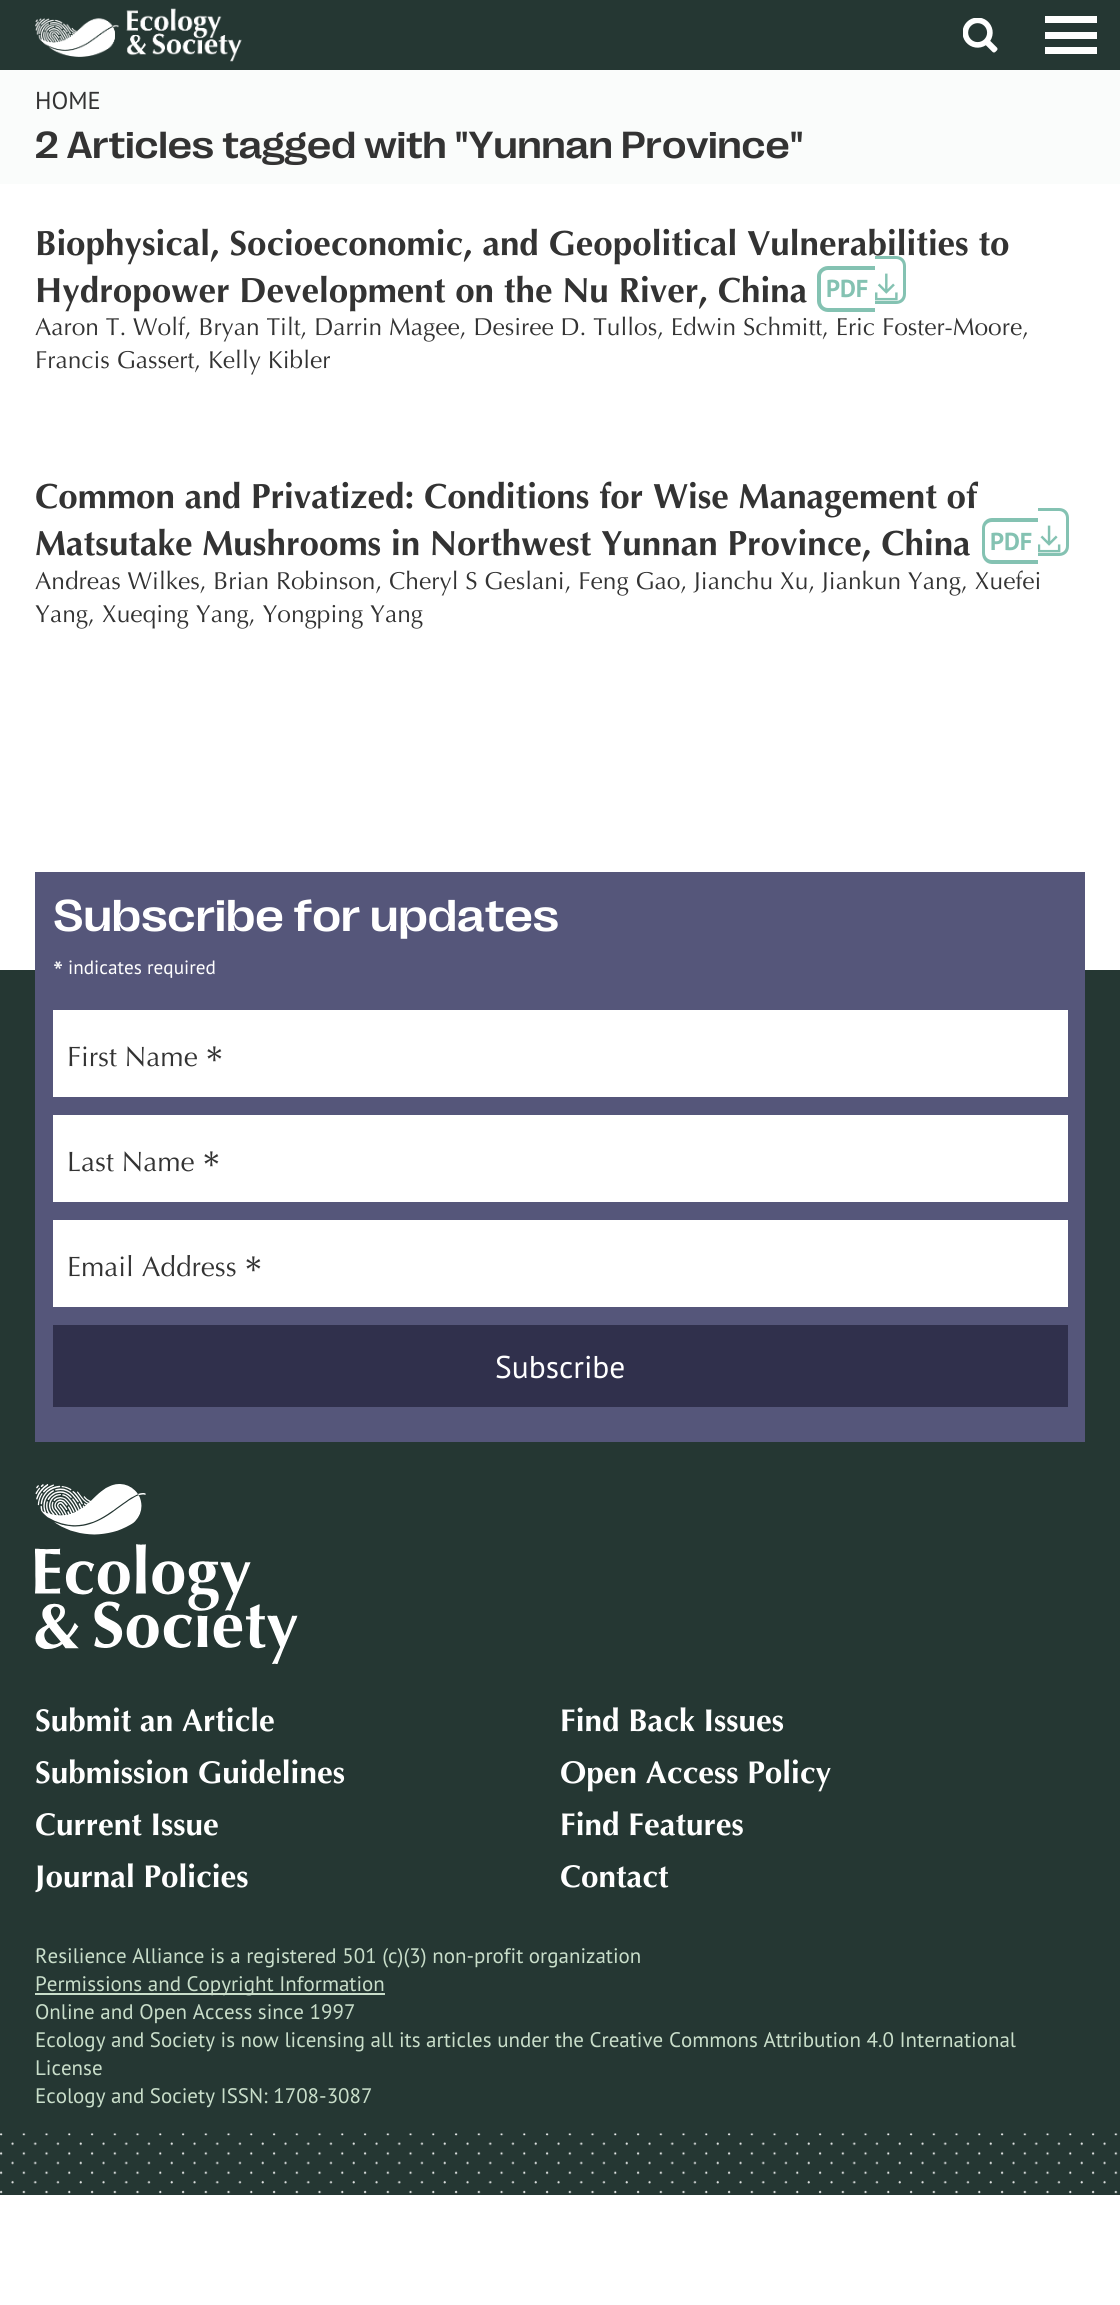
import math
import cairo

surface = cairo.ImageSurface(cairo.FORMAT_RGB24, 1120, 2305)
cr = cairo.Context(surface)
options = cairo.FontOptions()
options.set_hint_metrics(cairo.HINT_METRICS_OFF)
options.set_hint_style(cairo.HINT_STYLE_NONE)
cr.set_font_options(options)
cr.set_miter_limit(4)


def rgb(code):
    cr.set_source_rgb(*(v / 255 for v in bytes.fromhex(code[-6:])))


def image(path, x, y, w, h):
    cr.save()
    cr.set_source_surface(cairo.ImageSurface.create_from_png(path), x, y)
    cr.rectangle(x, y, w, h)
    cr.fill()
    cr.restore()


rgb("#ffffff")
cr.paint()
rgb("#253733")
cr.rectangle(0, 0, 1120, 70)
cr.fill()
image("img/1.png", 35, 8, 207, 54)
image("img/2.png", 963, 18, 35, 35)
for x, y, w, h, color in [
    (1045, 16, 52, 7, "#ffffff"),
    (1045, 32, 52, 7, "#ffffff"),
    (1045, 47, 52, 7, "#ffffff"),
    (0, 70, 1120, 114, "#fafcfb"),
]:
    rgb(color)
    cr.rectangle(x, y, w, h)
    cr.fill()
rgb("#84c2b2")
cr.set_fill_rule(cairo.FILL_RULE_EVEN_ODD)
cr.new_path()
cr.move_to(828, 266)
cr.line_to(875, 266)
cr.line_to(875, 312)
cr.line_to(828, 312)
cr.curve_to(822, 312, 817, 307, 817, 301)
cr.line_to(817, 276)
cr.curve_to(817, 271, 822, 266, 828, 266)
cr.close_path()
cr.move_to(828, 270)
cr.line_to(875, 270)
cr.line_to(875, 308)
cr.line_to(828, 308)
cr.curve_to(824, 308, 821, 305, 821, 301)
cr.line_to(821, 276)
cr.curve_to(821, 273, 824, 270, 828, 270)
cr.close_path()
cr.fill()
cr.new_path()
cr.move_to(992, 518)
cr.line_to(1038, 518)
cr.line_to(1038, 564)
cr.line_to(992, 564)
cr.curve_to(986, 564, 982, 559, 982, 553)
cr.line_to(982, 528)
cr.curve_to(982, 523, 986, 518, 992, 518)
cr.close_path()
cr.move_to(992, 522)
cr.line_to(1038, 522)
cr.line_to(1038, 560)
cr.line_to(992, 560)
cr.curve_to(988, 560, 985, 557, 985, 553)
cr.line_to(985, 528)
cr.curve_to(985, 525, 988, 522, 992, 522)
cr.close_path()
cr.fill()
cr.new_path()
cr.move_to(1038, 508)
cr.line_to(1059, 508)
cr.curve_to(1065, 508, 1069, 512, 1069, 518)
cr.line_to(1069, 546)
cr.curve_to(1069, 552, 1065, 556, 1059, 556)
cr.line_to(1038, 556)
cr.close_path()
cr.move_to(1038, 511)
cr.line_to(1059, 511)
cr.curve_to(1063, 511, 1066, 514, 1066, 518)
cr.line_to(1066, 546)
cr.curve_to(1066, 550, 1063, 553, 1059, 553)
cr.line_to(1038, 553)
cr.close_path()
cr.fill()
image("img/4.png", 1038, 525, 23, 28)
for x, y, w, h, color in [
    (0, 970, 1120, 1225, "#253733"),
    (35, 872, 1050, 570, "#55567a"),
    (53, 1010, 1015, 87, "#ffffff"),
    (53, 1115, 1015, 87, "#ffffff"),
    (53, 1220, 1015, 87, "#ffffff"),
    (53, 1325, 1015, 82, "#30304c"),
]:
    rgb(color)
    cr.rectangle(x, y, w, h)
    cr.fill()
image("img/5.png", 35, 1484, 263, 180)
rgb("#c9deca")
cr.rectangle(35, 1993, 350, 2)
cr.fill()
image("img/6.png", 0, 2133, 1118, 61)
cr.select_font_face("PT Sans")
cr.set_font_size(24.5)
rgb("#333333")
cr.move_to(35, 109)
cr.show_text("HOME")
cr.select_font_face("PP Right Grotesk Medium")
cr.set_font_size(38.5)
cr.move_to(35, 158)
cr.show_text("2 Articles tagged with \"Yunnan Province\"")
cr.select_font_face("Optima", cairo.FONT_SLANT_NORMAL, cairo.FONT_WEIGHT_BOLD)
cr.set_font_size(35)
cr.move_to(35, 255)
cr.show_text("Biophysical, Socioeconomic, and Geopolitical Vulnerabilities to")
cr.move_to(35, 302)
cr.show_text("Hydropower Development on the Nu River, China")
cr.select_font_face("PT Sans", cairo.FONT_SLANT_NORMAL, cairo.FONT_WEIGHT_BOLD)
cr.set_font_size(24.5)
rgb("#84c2b2")
cr.move_to(826, 297)
cr.show_text("PDF")
cr.new_path()
cr.move_to(875, 256)
cr.line_to(896, 256)
cr.curve_to(902, 256, 906, 260, 906, 266)
cr.line_to(906, 294)
cr.curve_to(906, 300, 902, 304, 896, 304)
cr.line_to(875, 304)
cr.close_path()
cr.move_to(875, 259)
cr.line_to(896, 259)
cr.curve_to(900, 259, 903, 262, 903, 266)
cr.line_to(903, 294)
cr.curve_to(903, 298, 900, 301, 896, 301)
cr.line_to(875, 301)
cr.close_path()
cr.fill()
image("img/3.png", 875, 273, 23, 28)
cr.select_font_face("Optima")
rgb("#333333")
cr.move_to(35, 335)
cr.show_text("Aaron T. Wolf, Bryan Tilt, Darrin Magee, Desiree D. Tullos, Edwin Schmitt, Eric Foster-Moore,")
cr.move_to(35, 368)
cr.show_text("Francis Gassert, Kelly Kibler")
cr.select_font_face("Optima", cairo.FONT_SLANT_NORMAL, cairo.FONT_WEIGHT_BOLD)
cr.set_font_size(35)
cr.move_to(35, 508)
cr.show_text("Common and Privatized: Conditions for Wise Management of")
cr.move_to(35, 555)
cr.show_text("Matsutake Mushrooms in Northwest Yunnan Province, China")
cr.select_font_face("PT Sans", cairo.FONT_SLANT_NORMAL, cairo.FONT_WEIGHT_BOLD)
cr.set_font_size(24.5)
rgb("#84c2b2")
cr.move_to(990, 550)
cr.show_text("PDF")
cr.select_font_face("Optima")
rgb("#333333")
cr.move_to(35, 589)
cr.show_text("Andreas Wilkes, Brian Robinson, Cheryl S Geslani, Feng Gao, Jianchu Xu, Jiankun Yang, Xuefei")
cr.move_to(35, 622)
cr.show_text("Yang, Xueqing Yang, Yongping Yang")
cr.select_font_face("PP Right Grotesk Medium")
cr.set_font_size(45.5)
rgb("#ffffff")
cr.move_to(53, 931)
cr.show_text("Subscribe for updates")
cr.select_font_face("PT Sans")
cr.set_font_size(29)
cr.move_to(53, 982)
cr.show_text("*")
cr.set_font_size(19.25)
cr.move_to(68, 974)
cr.show_text("indicates required")
cr.select_font_face("Optima")
cr.set_font_size(28)
rgb("#333333")
cr.move_to(67, 1066)
cr.show_text("First Name")
cr.set_font_size(42)
cr.move_to(205, 1075)
cr.show_text("*")
cr.set_font_size(28)
cr.move_to(67, 1171)
cr.show_text("Last Name")
cr.set_font_size(42)
cr.move_to(202, 1180)
cr.show_text("*")
cr.set_font_size(28)
cr.move_to(67, 1276)
cr.show_text("Email Address")
cr.set_font_size(42)
cr.move_to(244, 1285)
cr.show_text("*")
cr.select_font_face("PT Sans")
cr.set_font_size(31.5)
rgb("#ffffff")
cr.move_to(495, 1378)
cr.show_text("Subscribe")
cr.select_font_face("Optima", cairo.FONT_SLANT_NORMAL, cairo.FONT_WEIGHT_BOLD)
for x, y, s in [
    (35, 1731, "Submit an Article"),
    (560, 1731, "Find Back Issues"),
    (35, 1783, "Submission Guidelines"),
    (560, 1783, "Open Access Policy"),
    (35, 1835, "Current Issue"),
    (560, 1835, "Find Features"),
    (35, 1887, "Journal Policies"),
    (560, 1887, "Contact"),
]:
    cr.move_to(x, y)
    cr.show_text(s)
cr.select_font_face("PT Sans")
cr.set_font_size(21)
rgb("#c9deca")
for x, y, s in [
    (35, 1963, "Resilience Alliance is a registered 501 (c)(3) non-profit organization"),
    (35, 1991, "Permissions and Copyright Information"),
    (35, 2019, "Online and Open Access since 1997"),
    (35, 2047, "Ecology and Society is now licensing all its articles under the Creative Commons Attribution 4.0 International"),
    (35, 2075, "License"),
    (35, 2103, "Ecology and Society ISSN: 1708-3087"),
]:
    cr.move_to(x, y)
    cr.show_text(s)
surface.write_to_png("page.png")
